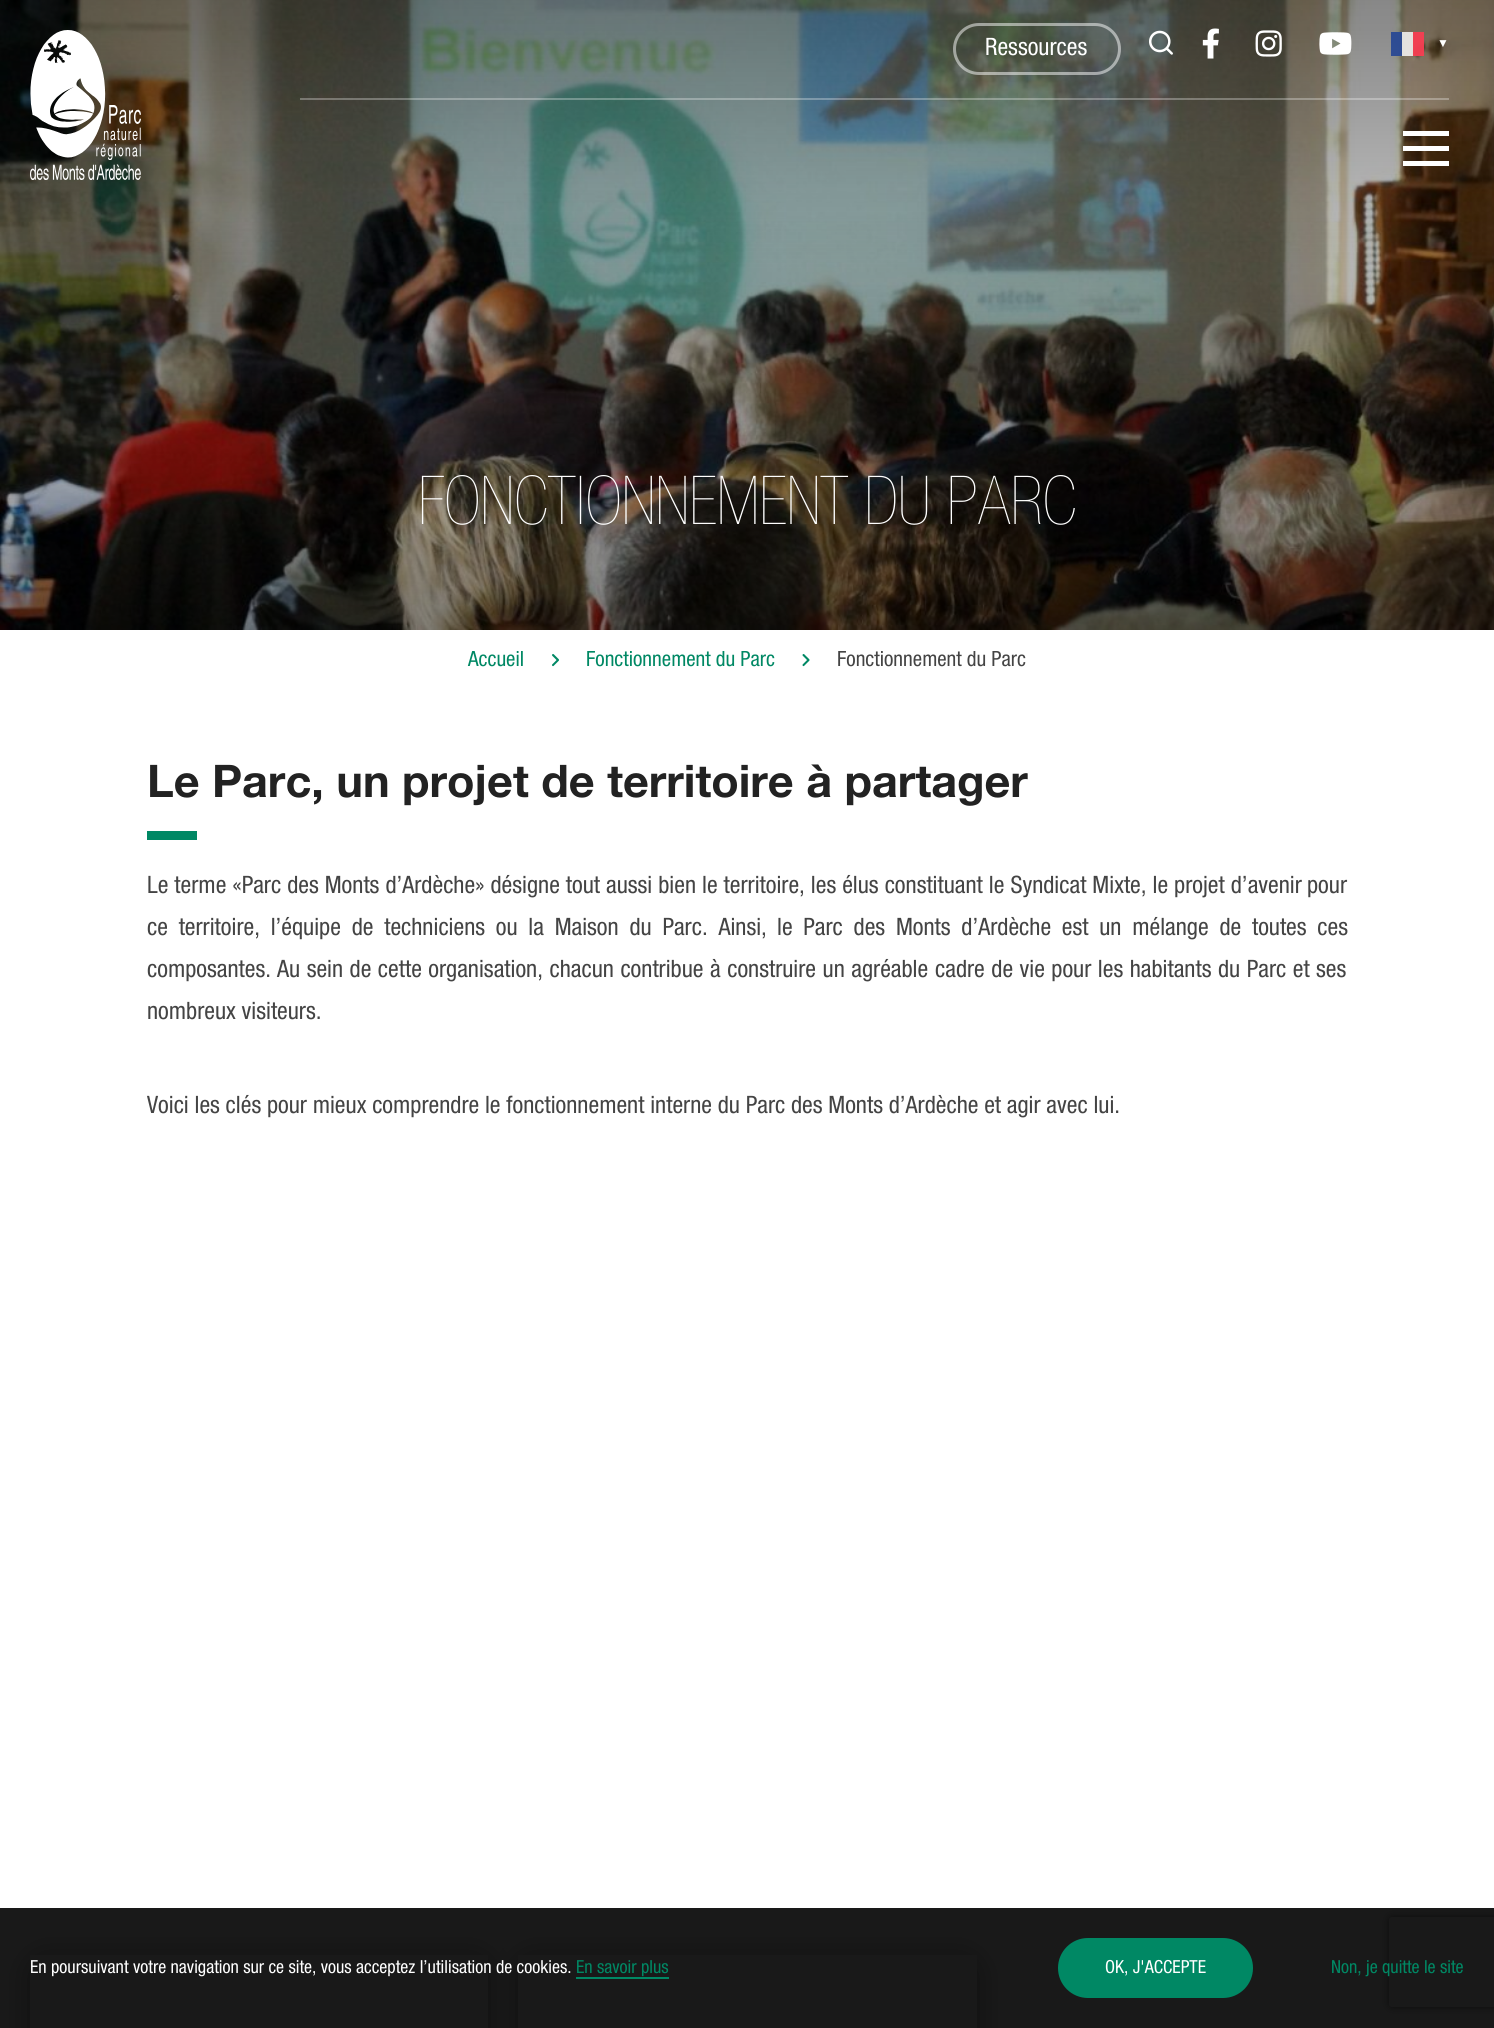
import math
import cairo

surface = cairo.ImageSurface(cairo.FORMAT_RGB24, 1494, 2028)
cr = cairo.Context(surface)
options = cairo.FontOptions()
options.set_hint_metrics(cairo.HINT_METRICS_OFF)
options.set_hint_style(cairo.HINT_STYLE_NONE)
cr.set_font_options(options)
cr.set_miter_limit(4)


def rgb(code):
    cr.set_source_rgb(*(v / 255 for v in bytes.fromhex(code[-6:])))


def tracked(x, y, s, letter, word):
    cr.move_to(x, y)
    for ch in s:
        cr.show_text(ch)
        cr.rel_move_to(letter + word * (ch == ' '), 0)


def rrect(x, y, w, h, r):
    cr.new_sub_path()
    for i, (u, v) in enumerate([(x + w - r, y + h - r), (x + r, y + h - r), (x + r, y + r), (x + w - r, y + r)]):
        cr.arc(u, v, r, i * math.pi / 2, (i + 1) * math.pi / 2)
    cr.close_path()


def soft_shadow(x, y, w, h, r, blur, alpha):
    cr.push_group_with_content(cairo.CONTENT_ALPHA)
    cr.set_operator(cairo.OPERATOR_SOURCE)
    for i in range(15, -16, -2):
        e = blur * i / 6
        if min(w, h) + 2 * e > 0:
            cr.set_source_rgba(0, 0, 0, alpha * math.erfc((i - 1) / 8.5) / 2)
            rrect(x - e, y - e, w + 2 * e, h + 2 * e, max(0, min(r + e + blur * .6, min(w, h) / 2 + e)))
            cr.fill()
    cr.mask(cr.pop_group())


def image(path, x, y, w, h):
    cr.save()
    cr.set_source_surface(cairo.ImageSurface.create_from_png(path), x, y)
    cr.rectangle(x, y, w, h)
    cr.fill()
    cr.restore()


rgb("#ffffff")
cr.paint()
image("img/6.png", 0, 0, 1494, 630)
image("img/1.png", 30, 30, 111, 150)
cr.set_source_rgba(1, 1, 1, 0.3)
cr.rectangle(300, 98, 1149, 2)
cr.fill()
rrect(954.5, 24.5, 165, 49, 24.5)
cr.set_source_rgba(1, 1, 1, 0.5)
cr.set_line_width(3)
cr.stroke()
image("img/2.png", 1149, 30, 24, 25)
image("img/3.png", 1202, 28, 17, 31)
image("img/4.png", 1255, 30, 27, 27)
image("img/5.png", 1319, 32, 33, 23)
cr.set_source_rgba(1, 1, 1, 0.8)
cr.rectangle(1391, 32, 33, 24)
cr.fill()
cr.set_source_rgba(0, 0.149, 0.498, 0.8)
cr.rectangle(1391, 32, 11, 24)
cr.fill()
cr.set_source_rgba(0.953, 0.094, 0.188, 0.8)
cr.rectangle(1413, 32, 11, 24)
cr.fill()
rgb("#ffffff")
cr.rectangle(1403, 146, 46, 5)
cr.rectangle(1403, 131, 46, 5)
cr.rectangle(1403, 161, 46, 5)
cr.fill()
image("img/7.png", 552, 654, 7, 13)
image("img/8.png", 802, 654, 8, 13)
rgb("#008864")
cr.rectangle(147, 831, 50, 9)
cr.fill()
cr.save()
cr.set_fill_rule(cairo.FILL_RULE_EVEN_ODD)
cr.new_path()
cr.move_to(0, 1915)
cr.line_to(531, 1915)
cr.line_to(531, 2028)
cr.line_to(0, 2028)
cr.close_path()
cr.move_to(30, 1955)
cr.line_to(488, 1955)
cr.line_to(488, 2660)
cr.line_to(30, 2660)
cr.close_path()
cr.clip()
rgb("#000000")
soft_shadow(42, 1970, 434, 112, 0, 18, 0.75)
cr.restore()
cr.save()
cr.set_fill_rule(cairo.FILL_RULE_EVEN_ODD)
cr.new_path()
cr.move_to(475, 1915)
cr.line_to(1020, 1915)
cr.line_to(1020, 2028)
cr.line_to(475, 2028)
cr.close_path()
cr.move_to(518, 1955)
cr.line_to(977, 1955)
cr.line_to(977, 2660)
cr.line_to(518, 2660)
cr.close_path()
cr.clip()
rgb("#000000")
soft_shadow(530, 1970, 435, 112, 0, 18, 0.75)
cr.restore()
cr.save()
cr.set_fill_rule(cairo.FILL_RULE_EVEN_ODD)
cr.new_path()
cr.move_to(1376, 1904)
cr.line_to(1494, 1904)
cr.line_to(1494, 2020)
cr.line_to(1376, 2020)
cr.close_path()
cr.move_to(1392, 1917)
cr.line_to(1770, 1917)
cr.curve_to(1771.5, 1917, 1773, 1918.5, 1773, 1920)
cr.line_to(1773, 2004)
cr.curve_to(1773, 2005.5, 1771.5, 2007, 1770, 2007)
cr.line_to(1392, 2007)
cr.curve_to(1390.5, 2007, 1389, 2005.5, 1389, 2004)
cr.line_to(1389, 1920)
cr.curve_to(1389, 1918.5, 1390.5, 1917, 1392, 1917)
cr.close_path()
cr.clip()
rgb("#808080")
soft_shadow(1389, 1917, 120, 90, 3, 4, 1)
cr.restore()
cr.set_source_rgba(0, 0, 0, 0.9)
cr.rectangle(0, 1908, 1494, 120)
cr.fill()
rgb("#008864")
cr.rectangle(576, 1977, 93, 2)
cr.fill()
rrect(1059, 1939, 193, 58, 29)
cr.fill_preserve()
cr.set_line_width(2)
cr.stroke()
cr.select_font_face("Helvetica Neue")
cr.set_font_size(24)
rgb("#ffffff")
cr.move_to(985, 55)
cr.show_text("Ressources")
cr.select_font_face("Liberation Sans", cairo.FONT_SLANT_NORMAL, cairo.FONT_WEIGHT_BOLD)
cr.set_font_size(12)
cr.move_to(1437, 47)
cr.show_text("▼")
cr.select_font_face("Helvetica Neue Light")
cr.set_font_size(67.5)
cr.move_to(418, 524)
cr.show_text("FONCTIONNEMENT DU PARC")
cr.select_font_face("Helvetica Neue")
cr.set_font_size(21)
rgb("#008864")
cr.move_to(468, 666)
cr.show_text("Accueil")
cr.move_to(586, 666)
cr.show_text("Fonctionnement du Parc")
rgb("#444444")
cr.move_to(837, 666)
cr.show_text("Fonctionnement du Parc")
cr.select_font_face("Helvetica Neue", cairo.FONT_SLANT_NORMAL, cairo.FONT_WEIGHT_BOLD)
cr.set_font_size(45)
rgb("#222222")
cr.move_to(147, 797)
cr.show_text("Le Parc, un projet de territoire à partager")
cr.select_font_face("Helvetica Neue")
cr.set_font_size(24)
rgb("#444444")
tracked(147, 893, "Le terme «Parc des Monts d’Ardèche» désigne tout aussi bien le territoire, les élus constituant le Syndicat Mixte, le projet d’avenir", 0, 0.25)
cr.move_to(1307, 893)
cr.show_text("pour")
tracked(147, 935, "ce territoire, l’équipe de techniciens ou la Maison du Parc. Ainsi,", 0, 5)
tracked(777, 935, "le Parc des Monts d’Ardèche est un mélange de toutes ces", 0, 5)
cr.move_to(147, 977)
cr.show_text("composantes.")
tracked(277, 977, "Au sein de cette organisation, chacun contribue à construire un agréable", 0, 0.75)
tracked(935, 977, "cadre de vie pour les habitants du Parc et ses", 0, 0.75)
cr.move_to(147, 1019)
cr.show_text("nombreux visiteurs.")
cr.move_to(147, 1113)
cr.show_text("Voici les clés pour mieux comprendre le fonctionnement interne du Parc des Monts d’Ardèche et agir avec lui.")
cr.set_font_size(18)
rgb("#ffffff")
cr.move_to(30, 1973)
cr.show_text("En poursuivant votre navigation sur ce site, vous acceptez l’utilisation de cookies.")
rgb("#008864")
cr.move_to(576, 1973)
cr.show_text("En savoir plus")
rgb("#ffffff")
cr.move_to(1105, 1973)
cr.show_text("OK, J'ACCEPTE")
rgb("#008864")
cr.move_to(1331, 1973)
cr.show_text("Non, je quitte le site")
surface.write_to_png("page.png")
